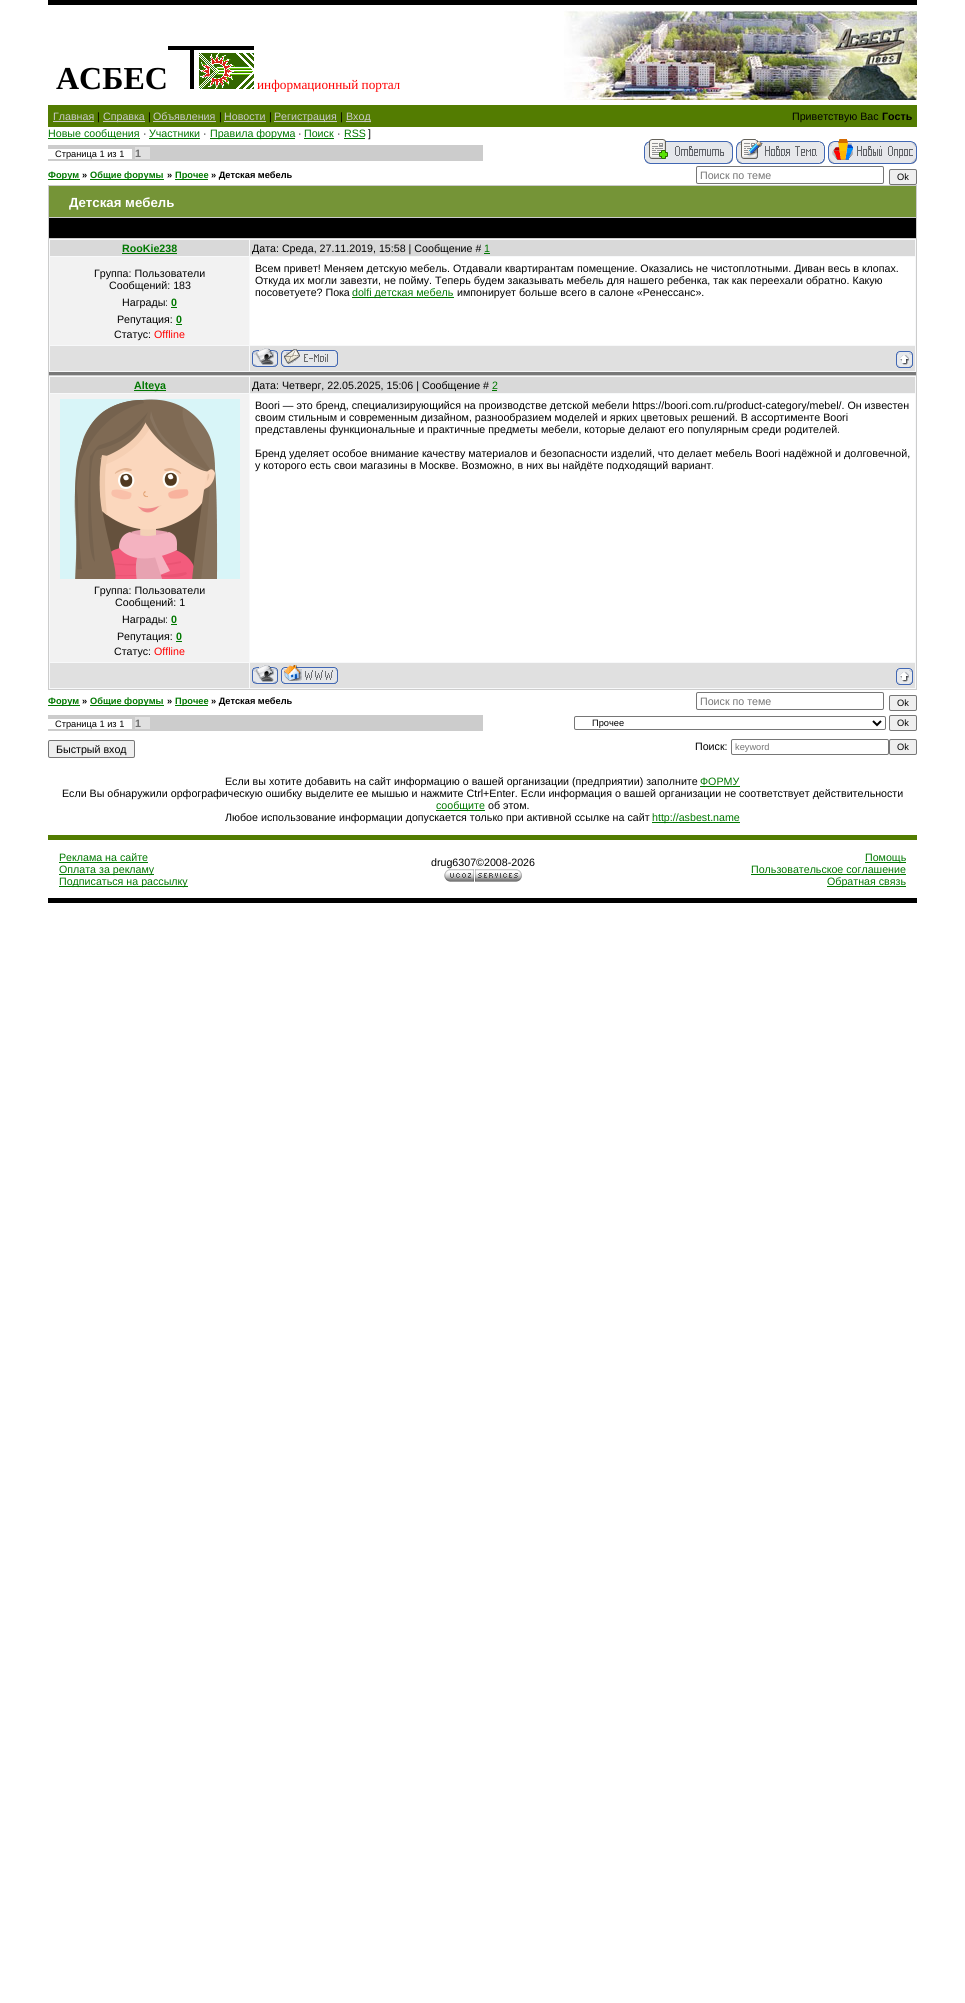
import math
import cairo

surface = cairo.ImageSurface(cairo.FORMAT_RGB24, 965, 2003)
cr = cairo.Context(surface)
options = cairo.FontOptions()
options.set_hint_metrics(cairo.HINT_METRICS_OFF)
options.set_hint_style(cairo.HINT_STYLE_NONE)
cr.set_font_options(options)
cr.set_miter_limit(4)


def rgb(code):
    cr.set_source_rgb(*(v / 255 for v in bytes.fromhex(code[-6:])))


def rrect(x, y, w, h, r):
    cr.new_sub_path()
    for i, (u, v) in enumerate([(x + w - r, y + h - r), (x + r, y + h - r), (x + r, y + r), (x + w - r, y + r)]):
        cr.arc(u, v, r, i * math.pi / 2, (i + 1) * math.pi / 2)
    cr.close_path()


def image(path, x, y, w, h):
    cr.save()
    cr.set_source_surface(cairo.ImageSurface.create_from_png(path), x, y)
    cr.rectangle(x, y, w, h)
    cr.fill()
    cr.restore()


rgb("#ffffff")
cr.paint()
rgb("#000000")
cr.rectangle(48, 0, 869, 5)
cr.fill()
image("img/1.png", 564, 10, 353, 90)
image("img/2.png", 168, 46, 86, 43)
for x, y, w, h, color in [
    (48, 105, 869, 22, "#537c01"),
    (53, 121, 41, 1, "#cccccc"),
    (103, 121, 42, 1, "#cccccc"),
    (153, 121, 63, 1, "#cccccc"),
    (224, 121, 42, 1, "#cccccc"),
    (274, 121, 63, 1, "#cccccc"),
    (346, 121, 25, 1, "#cccccc"),
    (48, 138, 92, 1, "#007700"),
    (149, 138, 51, 1, "#007700"),
    (210, 138, 85, 1, "#007700"),
    (304, 138, 30, 1, "#007700"),
    (344, 138, 21, 1, "#007700"),
    (48, 145, 435, 16, "#cccccc"),
    (48, 149, 84, 10, "#ffffff"),
    (135, 147, 15, 12, "#e0e0e0"),
]:
    rgb(color)
    cr.rectangle(x, y, w, h)
    cr.fill()
image("img/3.png", 644, 139, 89, 25)
image("img/4.png", 736, 139, 89, 25)
image("img/5.png", 828, 139, 89, 25)
for x, y, w, h, color in [
    (48, 179, 32, 1, "#007700"),
    (90, 179, 74, 1, "#007700"),
    (175, 179, 33, 1, "#007700"),
]:
    rgb(color)
    cr.rectangle(x, y, w, h)
    cr.fill()
rrect(696.5, 166.5, 187, 17, 1.5)
rgb("#767676")
cr.set_line_width(1)
cr.stroke()
rgb("#efefef")
rrect(889.5, 169.5, 27, 15, 1.5)
cr.fill_preserve()
rgb("#767676")
cr.stroke()
for x, y, w, h, color in [
    (48, 185, 869, 505, "#cccccc"),
    (49, 186, 867, 31, "#759437"),
    (49, 218, 867, 20, "#000000"),
    (49, 239, 867, 133, "#f8f9fa"),
    (49, 372, 867, 3, "#787878"),
    (50, 240, 199, 16, "#d9d9d9"),
    (122, 253, 55, 1, "#007700"),
    (250, 240, 665, 16, "#d9d9d9"),
    (484, 253, 6, 1, "#007700"),
    (50, 257, 199, 88, "#f2f2f2"),
    (171, 307, 6, 1, "#007700"),
    (176, 324, 6, 1, "#007700"),
    (250, 257, 665, 88, "#ffffff"),
    (352, 297, 102, 1, "#007700"),
    (50, 346, 199, 25, "#e0e0e0"),
    (250, 346, 665, 25, "#e0e0e0"),
]:
    rgb(color)
    cr.rectangle(x, y, w, h)
    cr.fill()
image("img/6.png", 252, 348, 26, 19)
image("img/7.png", 281, 349, 57, 18)
image("img/8.png", 896, 351, 17, 17)
for x, y, w, h, color in [
    (49, 376, 867, 313, "#f8f9fa"),
    (50, 377, 199, 16, "#d9d9d9"),
    (134, 390, 32, 1, "#007700"),
    (250, 377, 665, 16, "#d9d9d9"),
    (492, 390, 5, 1, "#007700"),
    (250, 394, 665, 268, "#ffffff"),
    (50, 394, 199, 268, "#f2f2f2"),
]:
    rgb(color)
    cr.rectangle(x, y, w, h)
    cr.fill()
image("img/9.png", 60, 399, 180, 180)
for x, y, w, h, color in [
    (171, 624, 6, 1, "#007700"),
    (176, 641, 6, 1, "#007700"),
    (50, 663, 199, 25, "#e0e0e0"),
    (250, 663, 665, 25, "#e0e0e0"),
]:
    rgb(color)
    cr.rectangle(x, y, w, h)
    cr.fill()
image("img/6.png", 252, 665, 26, 19)
image("img/10.png", 281, 665, 57, 19)
image("img/8.png", 896, 668, 17, 17)
for x, y, w, h, color in [
    (48, 705, 32, 1, "#007700"),
    (90, 705, 74, 1, "#007700"),
    (175, 705, 33, 1, "#007700"),
]:
    rgb(color)
    cr.rectangle(x, y, w, h)
    cr.fill()
rrect(696.5, 692.5, 187, 17, 1.5)
rgb("#767676")
cr.stroke()
rgb("#efefef")
rrect(889.5, 695.5, 27, 15, 1.5)
cr.fill_preserve()
rgb("#767676")
cr.stroke()
for x, y, w, h, color in [
    (48, 715, 435, 16, "#cccccc"),
    (48, 719, 84, 10, "#ffffff"),
    (135, 717, 15, 12, "#e0e0e0"),
]:
    rgb(color)
    cr.rectangle(x, y, w, h)
    cr.fill()
rrect(574.5, 716.5, 311, 13, 1.5)
rgb("#767676")
cr.stroke()
cr.new_path()
cr.move_to(873, 721)
cr.line_to(877, 725)
cr.line_to(881, 721)
rgb("#000000")
cr.set_line_width(2)
cr.stroke()
rgb("#efefef")
rrect(889.5, 715.5, 27, 15, 1.5)
cr.fill_preserve()
rgb("#767676")
cr.set_line_width(1)
cr.stroke()
rgb("#efefef")
rrect(48.5, 740.5, 86, 17, 1.5)
cr.fill_preserve()
rgb("#767676")
cr.stroke()
rrect(731.5, 739.5, 157, 15, 1.5)
cr.stroke()
rgb("#efefef")
rrect(889.5, 739.5, 27, 15, 1.5)
cr.fill_preserve()
rgb("#767676")
cr.stroke()
for x, y, w, h, color in [
    (700, 786, 40, 1, "#007700"),
    (436, 810, 49, 1, "#007700"),
    (652, 822, 88, 1, "#007700"),
    (48, 835, 869, 5, "#537c01"),
    (48, 898, 869, 5, "#000000"),
    (59, 862, 89, 1, "#007700"),
    (59, 874, 95, 1, "#007700"),
    (59, 886, 129, 1, "#007700"),
]:
    rgb(color)
    cr.rectangle(x, y, w, h)
    cr.fill()
image("img/11.png", 444, 869, 78, 13)
for x, y, w, h, color in [
    (865, 862, 41, 1, "#007700"),
    (751, 874, 155, 1, "#007700"),
    (827, 886, 79, 1, "#007700"),
]:
    rgb(color)
    cr.rectangle(x, y, w, h)
    cr.fill()
cr.select_font_face("Liberation Serif", cairo.FONT_SLANT_NORMAL, cairo.FONT_WEIGHT_BOLD)
cr.set_font_size(32)
rgb("#000000")
cr.move_to(56, 89)
cr.show_text("АСБЕС")
cr.select_font_face("Liberation Serif")
cr.set_font_size(13.25)
rgb("#ff0000")
cr.move_to(257, 89)
cr.show_text("информационный портал")
cr.select_font_face("Liberation Sans")
cr.set_font_size(10.67)
rgb("#cccccc")
cr.move_to(53, 120)
cr.show_text("Главная")
rgb("#000000")
cr.move_to(97, 120)
cr.show_text("|")
rgb("#cccccc")
cr.move_to(103, 120)
cr.show_text("Справка")
rgb("#000000")
cr.move_to(148, 120)
cr.show_text("|")
rgb("#cccccc")
cr.move_to(153, 120)
cr.show_text("Объявления")
rgb("#000000")
cr.move_to(219, 120)
cr.show_text("|")
rgb("#cccccc")
cr.move_to(224, 120)
cr.show_text("Новости")
rgb("#000000")
cr.move_to(269, 120)
cr.show_text("|")
rgb("#cccccc")
cr.move_to(274, 120)
cr.show_text("Регистрация")
rgb("#000000")
cr.move_to(340, 120)
cr.show_text("|")
rgb("#cccccc")
cr.move_to(346, 120)
cr.show_text("Вход")
rgb("#000000")
cr.move_to(792, 120)
cr.show_text("Приветствую Вас")
cr.select_font_face("Liberation Sans", cairo.FONT_SLANT_NORMAL, cairo.FONT_WEIGHT_BOLD)
cr.move_to(882, 120)
cr.show_text("Гость")
cr.select_font_face("Liberation Sans")
rgb("#007700")
cr.move_to(48, 137)
cr.show_text("Новые сообщения")
rgb("#000000")
cr.move_to(143, 137)
cr.show_text("·")
rgb("#007700")
cr.move_to(149, 137)
cr.show_text("Участники")
rgb("#000000")
cr.move_to(203, 137)
cr.show_text("·")
rgb("#007700")
cr.move_to(210, 137)
cr.show_text("Правила форума")
rgb("#000000")
cr.move_to(298, 137)
cr.show_text("·")
rgb("#007700")
cr.move_to(304, 137)
cr.show_text("Поиск")
rgb("#000000")
cr.move_to(337, 137)
cr.show_text("·")
rgb("#007700")
cr.move_to(344, 137)
cr.show_text("RSS")
rgb("#000000")
cr.move_to(368, 137)
cr.show_text("]")
cr.set_font_size(9.25)
cr.move_to(55, 157)
cr.show_text("Страница 1 из 1")
cr.select_font_face("Liberation Sans", cairo.FONT_SLANT_NORMAL, cairo.FONT_WEIGHT_BOLD)
cr.set_font_size(10.67)
rgb("#6e6e6e")
cr.move_to(135, 157)
cr.show_text("1")
cr.set_font_size(9.25)
rgb("#007700")
cr.move_to(48, 178)
cr.show_text("Форум")
rgb("#000000")
cr.move_to(82, 178)
cr.show_text("»")
rgb("#007700")
cr.move_to(90, 178)
cr.show_text("Общие форумы")
rgb("#000000")
cr.move_to(167, 178)
cr.show_text("»")
rgb("#007700")
cr.move_to(175, 178)
cr.show_text("Прочее")
rgb("#000000")
cr.move_to(211, 178)
cr.show_text("» Детская мебель")
cr.select_font_face("Liberation Sans")
cr.set_font_size(10.67)
rgb("#757575")
cr.move_to(700, 179)
cr.show_text("Поиск по теме")
cr.set_font_size(9.25)
rgb("#000000")
cr.move_to(897, 180)
cr.show_text("Ok")
cr.select_font_face("Liberation Sans", cairo.FONT_SLANT_NORMAL, cairo.FONT_WEIGHT_BOLD)
cr.set_font_size(13.25)
rgb("#ffffff")
cr.move_to(69, 207)
cr.show_text("Детская мебель")
cr.set_font_size(10.67)
rgb("#007700")
cr.move_to(122, 252)
cr.show_text("RooKie238")
cr.select_font_face("Liberation Sans")
rgb("#000000")
cr.move_to(252, 252)
cr.show_text("Дата: Среда, 27.11.2019, 15:58 | Сообщение #")
rgb("#007700")
cr.move_to(484, 252)
cr.show_text("1")
rgb("#000000")
for x, y, s in [
    (94, 277, "Группа: Пользователи"),
    (109, 289, "Сообщений: 183"),
    (122, 306, "Награды:"),
]:
    cr.move_to(x, y)
    cr.show_text(s)
cr.select_font_face("Liberation Sans", cairo.FONT_SLANT_NORMAL, cairo.FONT_WEIGHT_BOLD)
rgb("#007700")
cr.move_to(171, 306)
cr.show_text("0")
cr.select_font_face("Liberation Sans")
rgb("#000000")
cr.move_to(117, 323)
cr.show_text("Репутация:")
cr.select_font_face("Liberation Sans", cairo.FONT_SLANT_NORMAL, cairo.FONT_WEIGHT_BOLD)
rgb("#007700")
cr.move_to(176, 323)
cr.show_text("0")
cr.select_font_face("Liberation Sans")
rgb("#000000")
cr.move_to(114, 338)
cr.show_text("Статус:")
rgb("#ff0000")
cr.move_to(154, 338)
cr.show_text("Offline")
rgb("#000000")
for x, y, s in [
    (255, 272, "Всем привет! Меняем детскую мебель. Отдавали квартирантам помещение. Оказались не чистоплотными. Диван весь в клопах."),
    (255, 284, "Откуда их могли завезти, не пойму. Теперь будем заказывать мебель для нашего ребенка, так как переехали обратно. Какую"),
    (255, 296, "посоветуете? Пока"),
]:
    cr.move_to(x, y)
    cr.show_text(s)
rgb("#007700")
cr.move_to(352, 296)
cr.show_text("dolfi детская мебель")
rgb("#000000")
cr.move_to(457, 296)
cr.show_text("импонирует больше всего в салоне «Ренессанс».")
cr.select_font_face("Liberation Sans", cairo.FONT_SLANT_NORMAL, cairo.FONT_WEIGHT_BOLD)
rgb("#007700")
cr.move_to(134, 389)
cr.show_text("Alteya")
cr.select_font_face("Liberation Sans")
rgb("#000000")
cr.move_to(252, 389)
cr.show_text("Дата: Четверг, 22.05.2025, 15:06 | Сообщение #")
rgb("#007700")
cr.move_to(492, 389)
cr.show_text("2")
rgb("#000000")
for x, y, s in [
    (255, 409, "Boori — это бренд, специализирующийся на производстве детской мебели https://boori.com.ru/product-category/mebel/. Он известен"),
    (255, 421, "своим стильным и современным дизайном, разнообразием моделей и ярких цветовых решений. В ассортименте Boori"),
    (255, 433, "представлены функциональные и практичные предметы мебели, которые делают его популярным среди родителей."),
    (255, 457, "Бренд уделяет особое внимание качеству материалов и безопасности изделий, что делает мебель Boori надёжной и долговечной,"),
    (255, 469, "у которого есть свои магазины в Москве. Возможно, в них вы найдёте подходящий вариант."),
    (94, 594, "Группа: Пользователи"),
    (115, 606, "Сообщений: 1"),
    (122, 623, "Награды:"),
]:
    cr.move_to(x, y)
    cr.show_text(s)
cr.select_font_face("Liberation Sans", cairo.FONT_SLANT_NORMAL, cairo.FONT_WEIGHT_BOLD)
rgb("#007700")
cr.move_to(171, 623)
cr.show_text("0")
cr.select_font_face("Liberation Sans")
rgb("#000000")
cr.move_to(117, 640)
cr.show_text("Репутация:")
cr.select_font_face("Liberation Sans", cairo.FONT_SLANT_NORMAL, cairo.FONT_WEIGHT_BOLD)
rgb("#007700")
cr.move_to(176, 640)
cr.show_text("0")
cr.select_font_face("Liberation Sans")
rgb("#000000")
cr.move_to(114, 655)
cr.show_text("Статус:")
rgb("#ff0000")
cr.move_to(154, 655)
cr.show_text("Offline")
cr.select_font_face("Liberation Sans", cairo.FONT_SLANT_NORMAL, cairo.FONT_WEIGHT_BOLD)
cr.set_font_size(9.25)
rgb("#007700")
cr.move_to(48, 704)
cr.show_text("Форум")
rgb("#000000")
cr.move_to(82, 704)
cr.show_text("»")
rgb("#007700")
cr.move_to(90, 704)
cr.show_text("Общие форумы")
rgb("#000000")
cr.move_to(167, 704)
cr.show_text("»")
rgb("#007700")
cr.move_to(175, 704)
cr.show_text("Прочее")
rgb("#000000")
cr.move_to(211, 704)
cr.show_text("» Детская мебель")
cr.select_font_face("Liberation Sans")
cr.set_font_size(10.67)
rgb("#757575")
cr.move_to(700, 705)
cr.show_text("Поиск по теме")
cr.set_font_size(9.25)
rgb("#000000")
cr.move_to(897, 706)
cr.show_text("Ok")
cr.move_to(55, 727)
cr.show_text("Страница 1 из 1")
cr.select_font_face("Liberation Sans", cairo.FONT_SLANT_NORMAL, cairo.FONT_WEIGHT_BOLD)
cr.set_font_size(10.67)
rgb("#6e6e6e")
cr.move_to(135, 727)
cr.show_text("1")
cr.select_font_face("Liberation Sans")
cr.set_font_size(9.25)
rgb("#000000")
cr.move_to(592, 726)
cr.show_text("Прочее")
cr.move_to(897, 726)
cr.show_text("Ok")
cr.set_font_size(10.67)
cr.move_to(56, 753)
cr.show_text("Быстрый вход")
cr.move_to(695, 750)
cr.show_text("Поиск:")
cr.set_font_size(9.25)
rgb("#757575")
cr.move_to(735, 750)
cr.show_text("keyword")
rgb("#000000")
cr.move_to(897, 750)
cr.show_text("Ok")
cr.set_font_size(10.67)
cr.move_to(225, 785)
cr.show_text("Если вы хотите добавить на сайт информацию о вашей организации (предприятии) заполните")
rgb("#007700")
cr.move_to(700, 785)
cr.show_text("ФОРМУ")
rgb("#000000")
cr.move_to(62, 797)
cr.show_text("Если Вы обнаружили орфографическую ошибку выделите ее мышью и нажмите Ctrl+Enter. Если информация о вашей организации не соответствует действительности")
rgb("#007700")
cr.move_to(436, 809)
cr.show_text("сообщите")
rgb("#000000")
cr.move_to(488, 809)
cr.show_text("об этом.")
cr.move_to(225, 821)
cr.show_text("Любое использование информации допускается только при активной ссылке на сайт")
rgb("#007700")
for x, y, s in [
    (652, 821, "http://asbest.name"),
    (59, 861, "Реклама на сайте"),
    (59, 873, "Оплата за рекламу"),
    (59, 885, "Подписаться на рассылку"),
]:
    cr.move_to(x, y)
    cr.show_text(s)
rgb("#000000")
cr.move_to(431, 866)
cr.show_text("drug6307©2008-2026")
rgb("#007700")
for x, y, s in [
    (865, 861, "Помощь"),
    (751, 873, "Пользовательское соглашение"),
    (827, 885, "Обратная связь"),
]:
    cr.move_to(x, y)
    cr.show_text(s)
surface.write_to_png("page.png")
